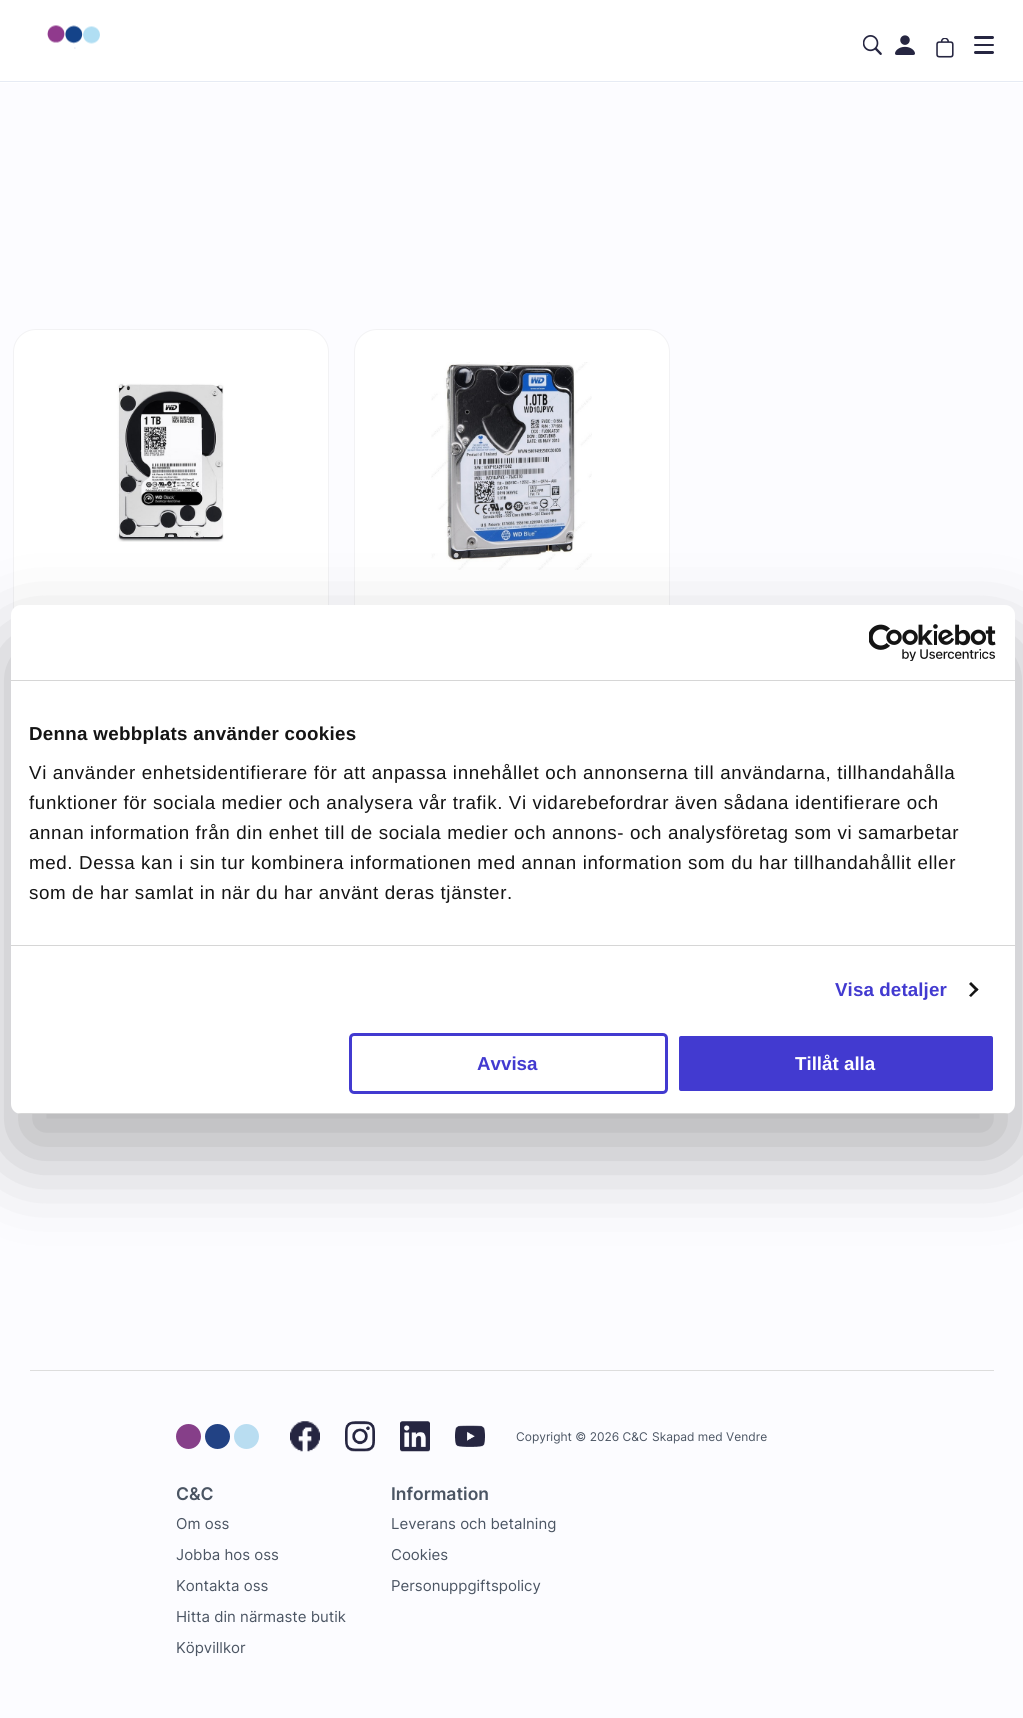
import math
import cairo

surface = cairo.ImageSurface(cairo.FORMAT_RGB24, 1023, 1718)
cr = cairo.Context(surface)
options = cairo.FontOptions()
options.set_hint_metrics(cairo.HINT_METRICS_OFF)
options.set_hint_style(cairo.HINT_STYLE_NONE)
cr.set_font_options(options)
cr.set_miter_limit(4)


def rgb(code):
    cr.set_source_rgb(*(v / 255 for v in bytes.fromhex(code[-6:])))


def tracked(x, y, s, letter, word):
    cr.move_to(x, y)
    for ch in s:
        cr.show_text(ch)
        cr.rel_move_to(letter + word * (ch == ' '), 0)


def rrect(x, y, w, h, r):
    cr.new_sub_path()
    for i, (u, v) in enumerate([(x + w - r, y + h - r), (x + r, y + h - r), (x + r, y + r), (x + w - r, y + r)]):
        cr.arc(u, v, r, i * math.pi / 2, (i + 1) * math.pi / 2)
    cr.close_path()


def soft_shadow(x, y, w, h, r, blur, alpha):
    cr.push_group_with_content(cairo.CONTENT_ALPHA)
    cr.set_operator(cairo.OPERATOR_SOURCE)
    for i in range(15, -16, -2):
        e = blur * i / 6
        if min(w, h) + 2 * e > 0:
            cr.set_source_rgba(0, 0, 0, alpha * math.erfc((i - 1) / 8.5) / 2)
            rrect(x - e, y - e, w + 2 * e, h + 2 * e, max(0, min(r + e + blur * .6, min(w, h) / 2 + e)))
            cr.fill()
    cr.mask(cr.pop_group())


def image(path, x, y, w, h):
    cr.save()
    cr.set_source_surface(cairo.ImageSurface.create_from_png(path), x, y)
    cr.rectangle(x, y, w, h)
    cr.fill()
    cr.restore()


rgb("#fcfcff")
cr.paint()
rgb("#ffffff")
cr.rectangle(0, 0, 1023, 83)
cr.fill()
rgb("#e6ebf4")
cr.rectangle(0, 81, 1023, 1)
cr.fill()
image("img/1.png", 47, 25, 53, 24)
image("img/2.png", 863, 35, 19, 20)
image("img/3.png", 895, 35, 20, 20)
image("img/4.png", 936, 38, 18, 20)
rgb("#262641")
rrect(974, 36, 20, 3, 1.5)
cr.fill()
rrect(974, 44, 20, 2, 1)
cr.fill()
rrect(974, 51, 20, 3, 1.5)
cr.fill()
rgb("#ffffff")
rrect(13.5, 329.5, 315, 460, 22.5)
cr.fill_preserve()
rgb("#f2f2f4")
cr.set_line_width(1)
cr.stroke()
image("img/5.png", 117, 383, 107, 159)
rgb("#ffffff")
rrect(354.5, 329.5, 315, 460, 22.5)
cr.fill_preserve()
rgb("#f2f2f4")
cr.stroke()
image("img/6.png", 431, 362, 161, 208)
rgb("#000000")
soft_shadow(11, 645, 1004, 509, 10, 42.5, 0.3)
rgb("#ffffff")
rrect(11, 605, 1004, 509, 10)
cr.fill()
rgb("#d6d6d6")
cr.rectangle(11, 680, 1004, 1)
cr.fill()
image("img/7.png", 869, 624, 127, 37)
cr.rectangle(11, 945, 1004, 1)
cr.fill()
rgb("#141414")
cr.new_path()
cr.move_to(971, 982)
cr.line_to(978.5, 989.5)
cr.line_to(976.5, 991.5)
cr.line_to(969, 984)
cr.close_path()
cr.fill()
cr.new_path()
cr.move_to(976.5, 988)
cr.line_to(978.5, 989.5)
cr.line_to(971, 997)
cr.line_to(969, 995.5)
cr.close_path()
cr.fill()
cr.save()
rrect(11, 605, 1004, 509, 10)
cr.clip()
rgb("#d6d6d6")
cr.rectangle(11, 1113, 1004, 1)
cr.fill()
cr.restore()
rrect(350.5, 1034.5, 316, 58, 3.5)
rgb("#423ad0")
cr.set_line_width(3)
cr.stroke()
rrect(677.5, 1034.5, 317, 58, 3.5)
cr.fill_preserve()
rgb("#ffffff")
cr.stroke()
rgb("#dddddd")
cr.rectangle(30, 1370, 964, 1)
cr.fill()
rgb("#863f89")
cr.arc(188.5, 1436.5, 12.5, 0, 2 * math.pi)
cr.fill()
rgb("#224284")
cr.arc(217.5, 1436.5, 12.5, 0, 2 * math.pi)
cr.fill()
rgb("#b9ddf1")
cr.arc(246.5, 1436.5, 12.5, 0, 2 * math.pi)
cr.fill()
image("img/8.png", 290, 1421, 30, 31)
image("img/9.png", 345, 1421, 30, 31)
image("img/10.png", 400, 1421, 30, 31)
image("img/11.png", 455, 1425, 30, 22)
cr.select_font_face("Liberation Sans", cairo.FONT_SLANT_NORMAL, cairo.FONT_WEIGHT_BOLD)
cr.set_font_size(18.75)
rgb("#141414")
tracked(29, 740, "Denna webbplats använder cookies", 0.3, 0)
cr.select_font_face("Liberation Sans")
for x, y, s in [
    (29, 779, "Vi använder enhetsidentifierare för att anpassa innehållet och annonserna till användarna, tillhandahålla"),
    (29, 809, "funktioner för sociala medier och analysera vår trafik. Vi vidarebefordrar även sådana identifierare och"),
    (29, 839, "annan information från din enhet till de sociala medier och annons- och analysföretag som vi samarbetar"),
    (29, 869, "med. Dessa kan i sin tur kombinera informationen med annan information som du har tillhandahållit eller"),
    (29, 899, "som de har samlat in när du har använt deras tjänster."),
]:
    tracked(x, y, s, 0.62, 0)
cr.select_font_face("Liberation Sans", cairo.FONT_SLANT_NORMAL, cairo.FONT_WEIGHT_BOLD)
rgb("#423ad0")
tracked(835, 996, "Visa detaljer", 0.1, 0)
cr.move_to(477, 1070)
cr.show_text("Avvisa")
rgb("#ffffff")
cr.move_to(795, 1070)
cr.show_text("Tillåt alla")
cr.select_font_face("Inter")
cr.set_font_size(12)
rgb("#4b5563")
cr.move_to(516, 1441)
cr.show_text("Copyright © 2026 C&C")
cr.move_to(652, 1441)
cr.show_text("Skapad med Vendre")
cr.select_font_face("Inter SemiBold")
cr.set_font_size(17.5)
cr.move_to(176, 1500)
cr.show_text("C&C")
cr.select_font_face("Inter")
cr.set_font_size(15)
for x, y, s in [
    (176, 1529, "Om oss"),
    (176, 1560, "Jobba hos oss"),
    (176, 1591, "Kontakta oss"),
    (176, 1622, "Hitta din närmaste butik"),
    (176, 1653, "Köpvillkor"),
]:
    cr.move_to(x, y)
    cr.show_text(s)
cr.select_font_face("Inter SemiBold")
cr.set_font_size(17.5)
cr.move_to(391, 1500)
cr.show_text("Information")
cr.select_font_face("Inter")
cr.set_font_size(15)
for x, y, s in [
    (391, 1529, "Leverans och betalning"),
    (391, 1560, "Cookies"),
    (391, 1591, "Personuppgiftspolicy"),
]:
    cr.move_to(x, y)
    cr.show_text(s)
surface.write_to_png("page.png")
